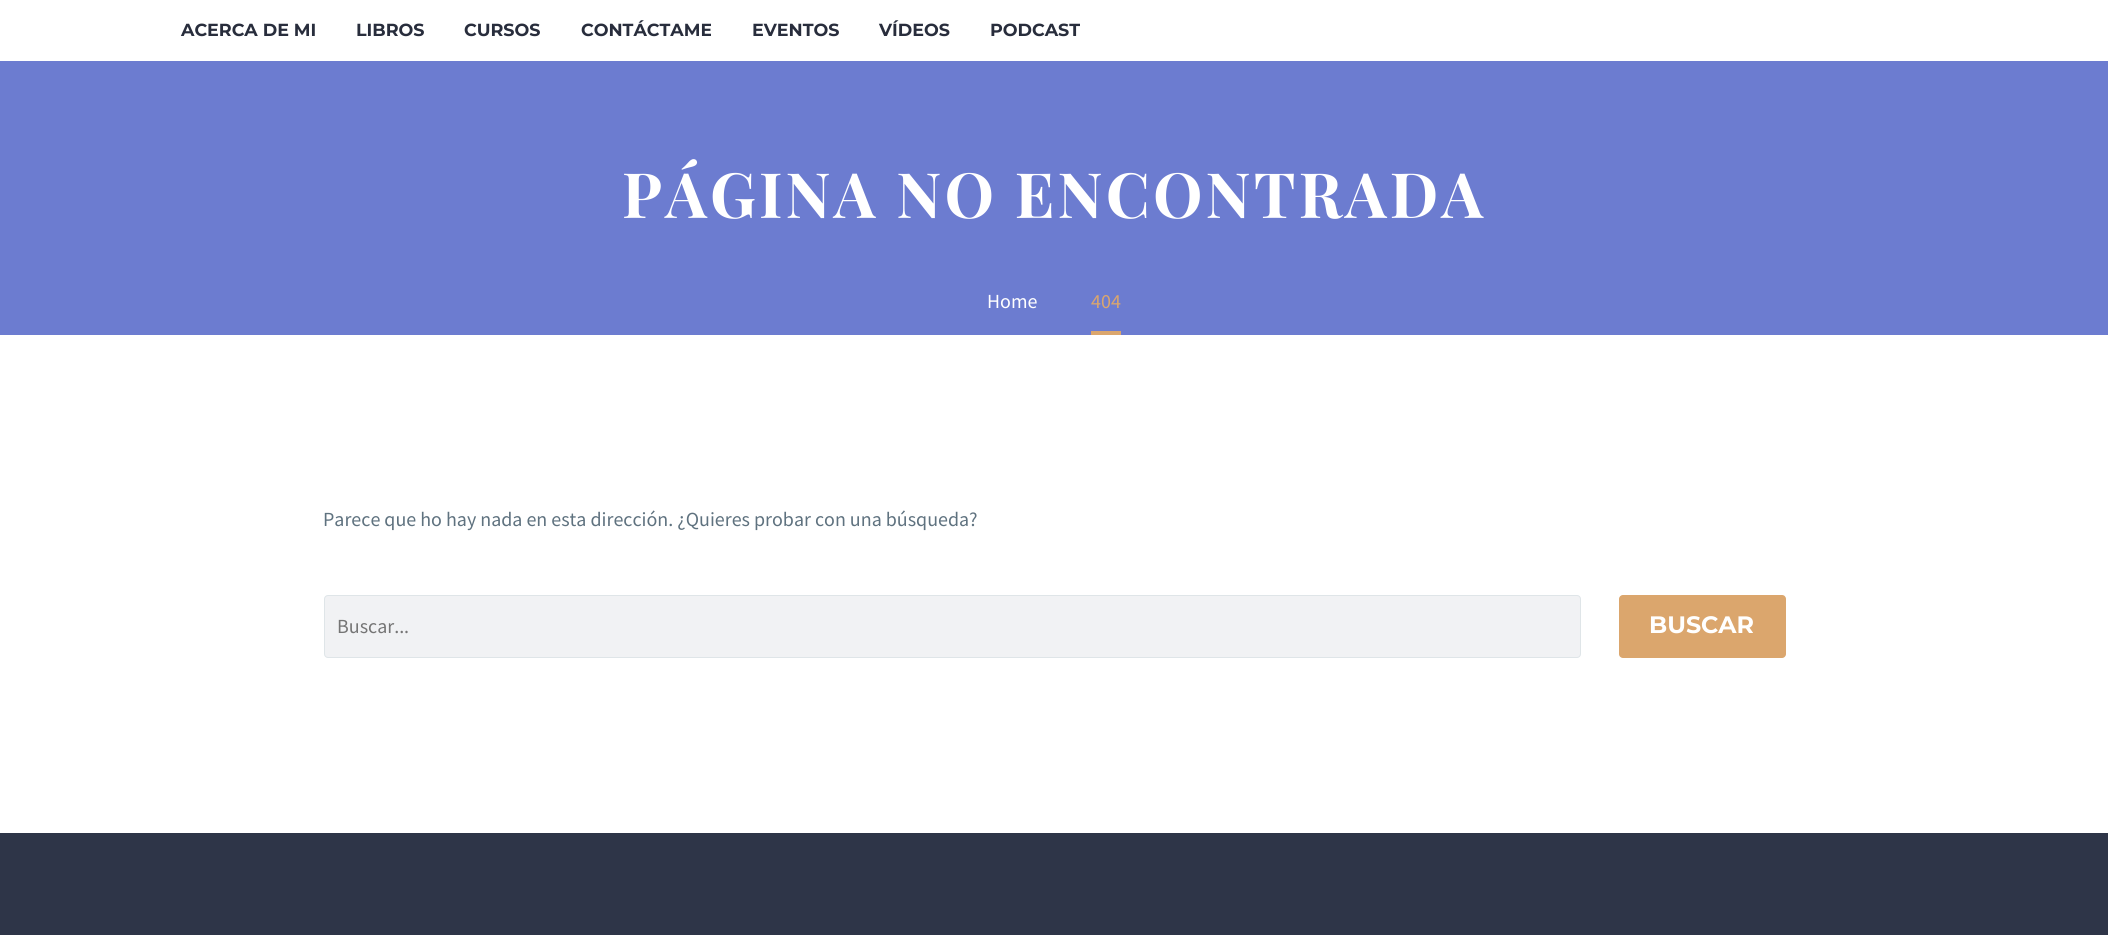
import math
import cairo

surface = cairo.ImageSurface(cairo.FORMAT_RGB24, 2108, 935)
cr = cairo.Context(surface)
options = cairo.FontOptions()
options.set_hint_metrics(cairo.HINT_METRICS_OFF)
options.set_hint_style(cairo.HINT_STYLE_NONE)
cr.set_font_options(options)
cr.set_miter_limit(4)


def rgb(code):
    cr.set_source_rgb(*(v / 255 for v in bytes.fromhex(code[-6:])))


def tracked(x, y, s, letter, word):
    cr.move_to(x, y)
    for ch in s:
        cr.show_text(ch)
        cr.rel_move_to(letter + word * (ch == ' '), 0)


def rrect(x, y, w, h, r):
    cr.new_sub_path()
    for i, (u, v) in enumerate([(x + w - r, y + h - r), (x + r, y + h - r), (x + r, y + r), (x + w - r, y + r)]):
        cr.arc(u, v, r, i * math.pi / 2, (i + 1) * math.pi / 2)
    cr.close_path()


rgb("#ffffff")
cr.paint()
rgb("#6c7cd0")
cr.rectangle(0, 61, 2108, 274)
cr.fill()
rgb("#dba66d")
cr.rectangle(1091, 331, 30, 4)
cr.fill()
rgb("#f1f2f4")
rrect(324.5, 595.5, 1256, 62, 3.5)
cr.fill_preserve()
rgb("#dfe5e8")
cr.set_line_width(1)
cr.stroke()
rgb("#dba66d")
rrect(1619, 595, 167, 63, 4)
cr.fill()
rgb("#2e3548")
cr.rectangle(0, 833, 2108, 102)
cr.fill()
cr.select_font_face("Montserrat", cairo.FONT_SLANT_NORMAL, cairo.FONT_WEIGHT_BOLD)
cr.set_font_size(17.5)
rgb("#282d3c")
for x, y, s in [
    (181, 36, "ACERCA DE MI"),
    (356, 36, "LIBROS"),
    (464, 36, "CURSOS"),
    (581, 36, "CONTÁCTAME"),
    (752, 36, "EVENTOS"),
    (879, 36, "VÍDEOS"),
    (990, 36, "PODCAST"),
]:
    cr.move_to(x, y)
    cr.show_text(s)
cr.select_font_face("Playfair Display", cairo.FONT_SLANT_NORMAL, cairo.FONT_WEIGHT_BOLD)
cr.set_font_size(62.5)
rgb("#ffffff")
tracked(622, 218, "PÁGINA NO ENCONTRADA", 3.1, 0)
cr.select_font_face("Source Sans Pro")
cr.set_font_size(20)
cr.move_to(987, 308)
cr.show_text("Home")
rgb("#dba66d")
cr.move_to(1091, 308)
cr.show_text("404")
rgb("#5f727f")
cr.move_to(323, 526)
cr.show_text("Parece que ho hay nada en esta dirección. ¿Quieres probar con una búsqueda?")
rgb("#757575")
cr.move_to(337, 633)
cr.show_text("Buscar...")
cr.select_font_face("Montserrat", cairo.FONT_SLANT_NORMAL, cairo.FONT_WEIGHT_BOLD)
cr.set_font_size(23.75)
rgb("#ffffff")
cr.move_to(1649, 633)
cr.show_text("BUSCAR")
surface.write_to_png("page.png")
